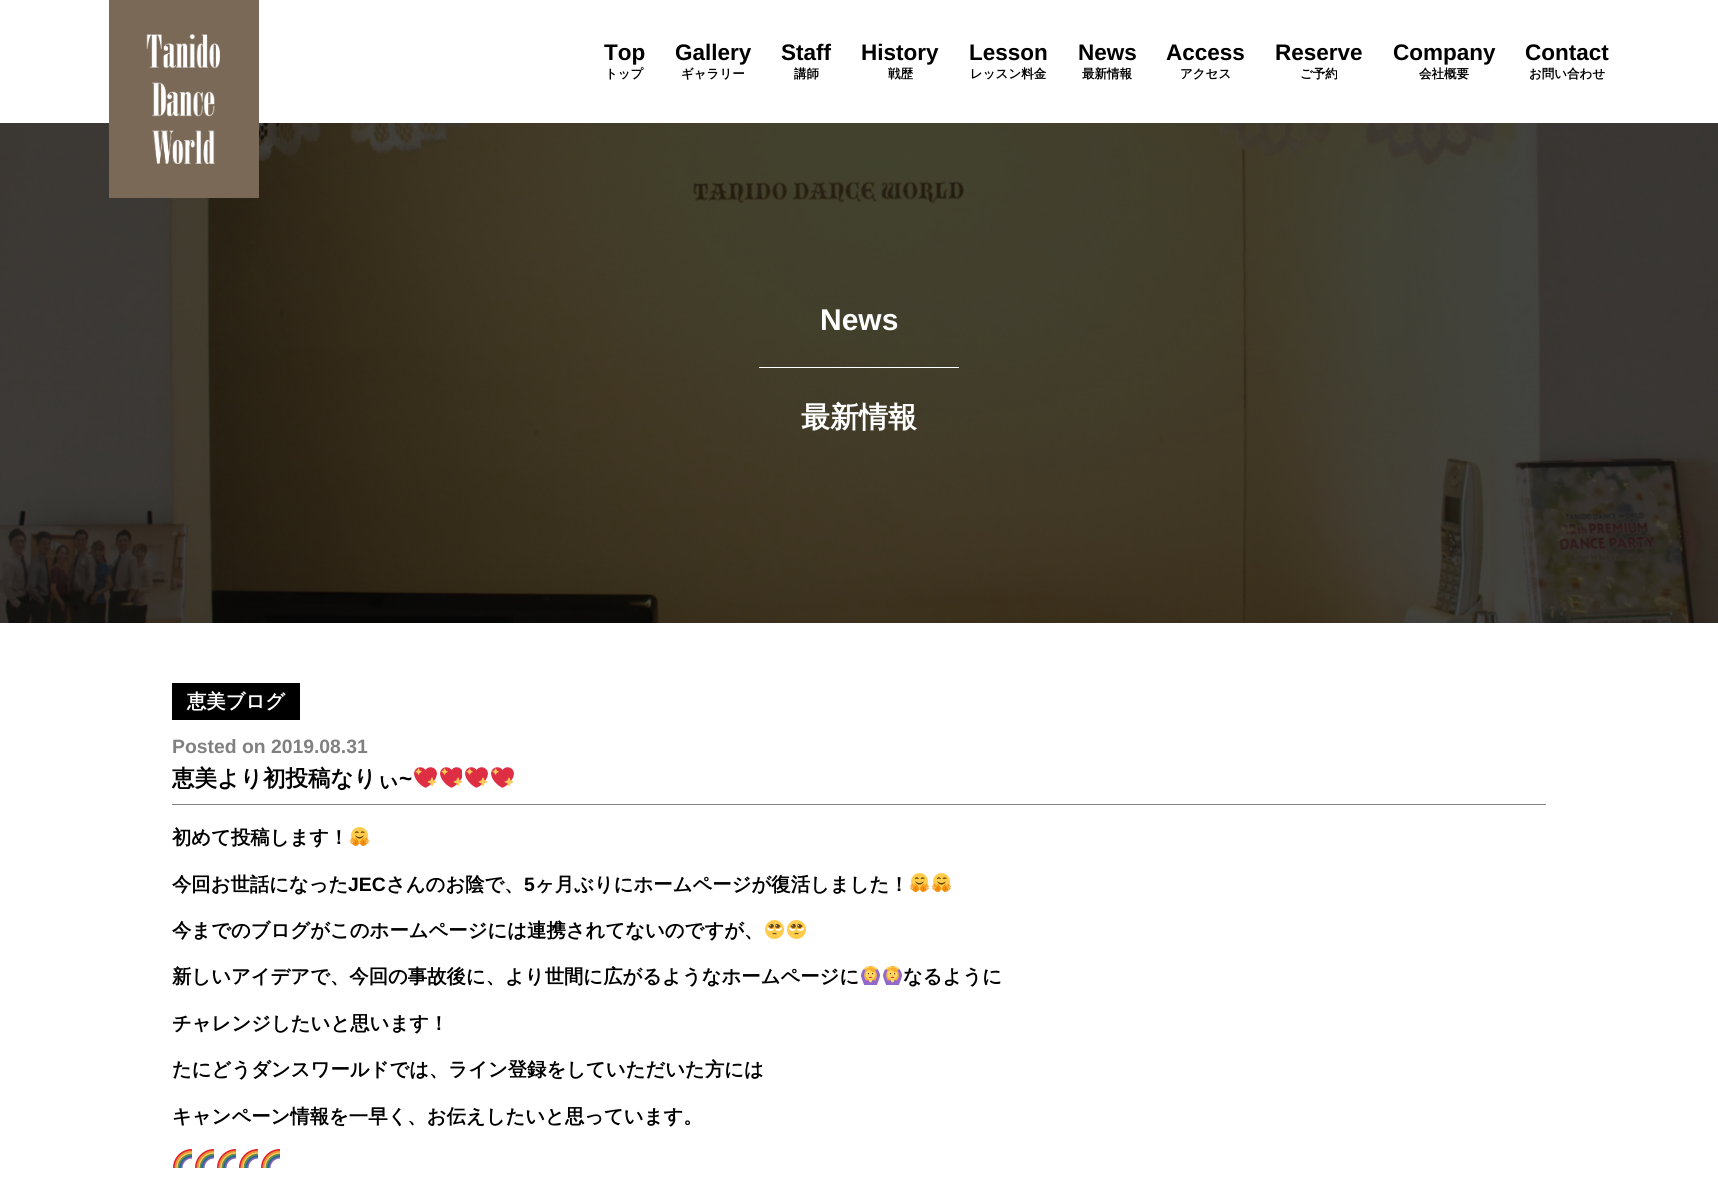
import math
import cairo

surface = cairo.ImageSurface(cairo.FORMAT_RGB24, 1718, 1178)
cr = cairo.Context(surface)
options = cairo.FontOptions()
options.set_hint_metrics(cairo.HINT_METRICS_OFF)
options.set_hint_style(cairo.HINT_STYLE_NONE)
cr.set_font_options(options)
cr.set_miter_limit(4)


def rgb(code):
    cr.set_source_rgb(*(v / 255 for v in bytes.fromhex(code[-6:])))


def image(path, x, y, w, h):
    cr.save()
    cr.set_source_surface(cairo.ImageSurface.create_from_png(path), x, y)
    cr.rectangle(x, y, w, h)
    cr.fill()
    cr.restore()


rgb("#ffffff")
cr.paint()
image("img/2.png", 0, 123, 1718, 500)
rgb("#7a6957")
cr.rectangle(109, 0, 150, 198)
cr.fill()
image("img/1.png", 146, 34, 74, 130)
for x, y, w, h, color in [
    (759, 367, 200, 1, "#ffffff"),
    (172, 683, 128, 37, "#000000"),
    (172, 804, 1374, 1, "#808080"),
]:
    rgb(color)
    cr.rectangle(x, y, w, h)
    cr.fill()
image("img/3.png", 414, 767, 23, 21)
image("img/4.png", 440, 767, 22, 21)
image("img/3.png", 465, 767, 23, 21)
image("img/3.png", 491, 767, 23, 21)
image("img/5.png", 350, 827, 19, 19)
image("img/5.png", 910, 873, 19, 19)
image("img/5.png", 932, 873, 19, 19)
image("img/6.png", 765, 920, 19, 19)
image("img/6.png", 787, 920, 19, 19)
image("img/7.png", 861, 966, 19, 19)
image("img/7.png", 883, 966, 19, 19)
image("img/8.png", 173, 1149, 19, 19)
image("img/8.png", 195, 1149, 19, 19)
image("img/8.png", 217, 1149, 19, 19)
image("img/8.png", 239, 1149, 19, 19)
image("img/8.png", 261, 1149, 19, 19)
cr.select_font_face("Liberation Sans", cairo.FONT_SLANT_NORMAL, cairo.FONT_WEIGHT_BOLD)
cr.set_font_size(22.5)
rgb("#000000")
cr.move_to(604, 60)
cr.show_text("Top")
cr.select_font_face("WenQuanYi Zen Hei", cairo.FONT_SLANT_NORMAL, cairo.FONT_WEIGHT_BOLD)
cr.set_font_size(12.5)
cr.move_to(605, 78)
cr.show_text("トップ")
cr.select_font_face("Liberation Sans", cairo.FONT_SLANT_NORMAL, cairo.FONT_WEIGHT_BOLD)
cr.set_font_size(22.5)
cr.move_to(675, 60)
cr.show_text("Gallery")
cr.select_font_face("WenQuanYi Zen Hei", cairo.FONT_SLANT_NORMAL, cairo.FONT_WEIGHT_BOLD)
cr.set_font_size(12.5)
cr.move_to(681, 78)
cr.show_text("ギャラリー")
cr.select_font_face("Liberation Sans", cairo.FONT_SLANT_NORMAL, cairo.FONT_WEIGHT_BOLD)
cr.set_font_size(22.5)
cr.move_to(781, 60)
cr.show_text("Staff")
cr.select_font_face("WenQuanYi Zen Hei", cairo.FONT_SLANT_NORMAL, cairo.FONT_WEIGHT_BOLD)
cr.set_font_size(12.5)
cr.move_to(794, 78)
cr.show_text("講師")
cr.select_font_face("Liberation Sans", cairo.FONT_SLANT_NORMAL, cairo.FONT_WEIGHT_BOLD)
cr.set_font_size(22.5)
cr.move_to(861, 60)
cr.show_text("History")
cr.select_font_face("WenQuanYi Zen Hei", cairo.FONT_SLANT_NORMAL, cairo.FONT_WEIGHT_BOLD)
cr.set_font_size(12.5)
cr.move_to(888, 78)
cr.show_text("戦歴")
cr.select_font_face("Liberation Sans", cairo.FONT_SLANT_NORMAL, cairo.FONT_WEIGHT_BOLD)
cr.set_font_size(22.5)
cr.move_to(969, 60)
cr.show_text("Lesson")
cr.select_font_face("WenQuanYi Zen Hei", cairo.FONT_SLANT_NORMAL, cairo.FONT_WEIGHT_BOLD)
cr.set_font_size(12.5)
cr.move_to(970, 78)
cr.show_text("レッスン料金")
cr.select_font_face("Liberation Sans", cairo.FONT_SLANT_NORMAL, cairo.FONT_WEIGHT_BOLD)
cr.set_font_size(22.5)
cr.move_to(1078, 60)
cr.show_text("News")
cr.select_font_face("WenQuanYi Zen Hei", cairo.FONT_SLANT_NORMAL, cairo.FONT_WEIGHT_BOLD)
cr.set_font_size(12.5)
cr.move_to(1082, 78)
cr.show_text("最新情報")
cr.select_font_face("Liberation Sans", cairo.FONT_SLANT_NORMAL, cairo.FONT_WEIGHT_BOLD)
cr.set_font_size(22.5)
cr.move_to(1166, 60)
cr.show_text("Access")
cr.select_font_face("WenQuanYi Zen Hei", cairo.FONT_SLANT_NORMAL, cairo.FONT_WEIGHT_BOLD)
cr.set_font_size(12.5)
cr.move_to(1180, 78)
cr.show_text("アクセス")
cr.select_font_face("Liberation Sans", cairo.FONT_SLANT_NORMAL, cairo.FONT_WEIGHT_BOLD)
cr.set_font_size(22.5)
cr.move_to(1275, 60)
cr.show_text("Reserve")
cr.select_font_face("WenQuanYi Zen Hei", cairo.FONT_SLANT_NORMAL, cairo.FONT_WEIGHT_BOLD)
cr.set_font_size(12.5)
cr.move_to(1300, 78)
cr.show_text("ご予約")
cr.select_font_face("Liberation Sans", cairo.FONT_SLANT_NORMAL, cairo.FONT_WEIGHT_BOLD)
cr.set_font_size(22.5)
cr.move_to(1393, 60)
cr.show_text("Company")
cr.select_font_face("WenQuanYi Zen Hei", cairo.FONT_SLANT_NORMAL, cairo.FONT_WEIGHT_BOLD)
cr.set_font_size(12.5)
cr.move_to(1419, 78)
cr.show_text("会社概要")
cr.select_font_face("Liberation Sans", cairo.FONT_SLANT_NORMAL, cairo.FONT_WEIGHT_BOLD)
cr.set_font_size(22.5)
cr.move_to(1525, 60)
cr.show_text("Contact")
cr.select_font_face("WenQuanYi Zen Hei", cairo.FONT_SLANT_NORMAL, cairo.FONT_WEIGHT_BOLD)
cr.set_font_size(12.5)
cr.move_to(1529, 78)
cr.show_text("お問い合わせ")
cr.select_font_face("Liberation Sans", cairo.FONT_SLANT_NORMAL, cairo.FONT_WEIGHT_BOLD)
cr.set_font_size(30)
rgb("#ffffff")
cr.move_to(820, 330)
cr.show_text("News")
cr.select_font_face("WenQuanYi Zen Hei", cairo.FONT_SLANT_NORMAL, cairo.FONT_WEIGHT_BOLD)
cr.set_font_size(29)
cr.move_to(801, 427)
cr.show_text("最新情報")
cr.set_font_size(19.35)
cr.move_to(187, 708)
cr.show_text("恵美ブログ")
cr.select_font_face("Liberation Sans", cairo.FONT_SLANT_NORMAL, cairo.FONT_WEIGHT_BOLD)
rgb("#808080")
cr.move_to(172, 753)
cr.show_text("Posted on 2019.08.31")
cr.select_font_face("WenQuanYi Zen Hei", cairo.FONT_SLANT_NORMAL, cairo.FONT_WEIGHT_BOLD)
cr.set_font_size(22.5)
rgb("#000000")
cr.move_to(172, 786)
cr.show_text("恵美より初投稿なりぃ")
cr.select_font_face("Liberation Sans", cairo.FONT_SLANT_NORMAL, cairo.FONT_WEIGHT_BOLD)
cr.move_to(399, 786)
cr.show_text("~")
cr.select_font_face("WenQuanYi Zen Hei", cairo.FONT_SLANT_NORMAL, cairo.FONT_WEIGHT_BOLD)
cr.set_font_size(19.35)
cr.move_to(172, 844)
cr.show_text("初めて投稿します！")
cr.move_to(172, 891)
cr.show_text("今回お世話になった")
cr.select_font_face("Liberation Sans", cairo.FONT_SLANT_NORMAL, cairo.FONT_WEIGHT_BOLD)
cr.move_to(348, 891)
cr.show_text("JEC")
cr.select_font_face("WenQuanYi Zen Hei", cairo.FONT_SLANT_NORMAL, cairo.FONT_WEIGHT_BOLD)
cr.move_to(386, 891)
cr.show_text("さんのお陰で、")
cr.select_font_face("Liberation Sans", cairo.FONT_SLANT_NORMAL, cairo.FONT_WEIGHT_BOLD)
cr.move_to(524, 891)
cr.show_text("5")
cr.select_font_face("WenQuanYi Zen Hei", cairo.FONT_SLANT_NORMAL, cairo.FONT_WEIGHT_BOLD)
for x, y, s in [
    (535, 891, "ヶ月ぶりにホームページが復活しました！"),
    (172, 937, "今までのブログがこのホームページには連携されてないのですが、"),
    (172, 983, "新しいアイデアで、今回の事故後に、より世間に広がるようなホームページに"),
    (903, 983, "なるように"),
    (172, 1030, "チャレンジしたいと思います！"),
    (172, 1076, "たにどうダンスワールドでは、ライン登録をしていただいた方には"),
    (172, 1123, "キャンペーン情報を一早く、お伝えしたいと思っています。"),
]:
    cr.move_to(x, y)
    cr.show_text(s)
surface.write_to_png("page.png")
